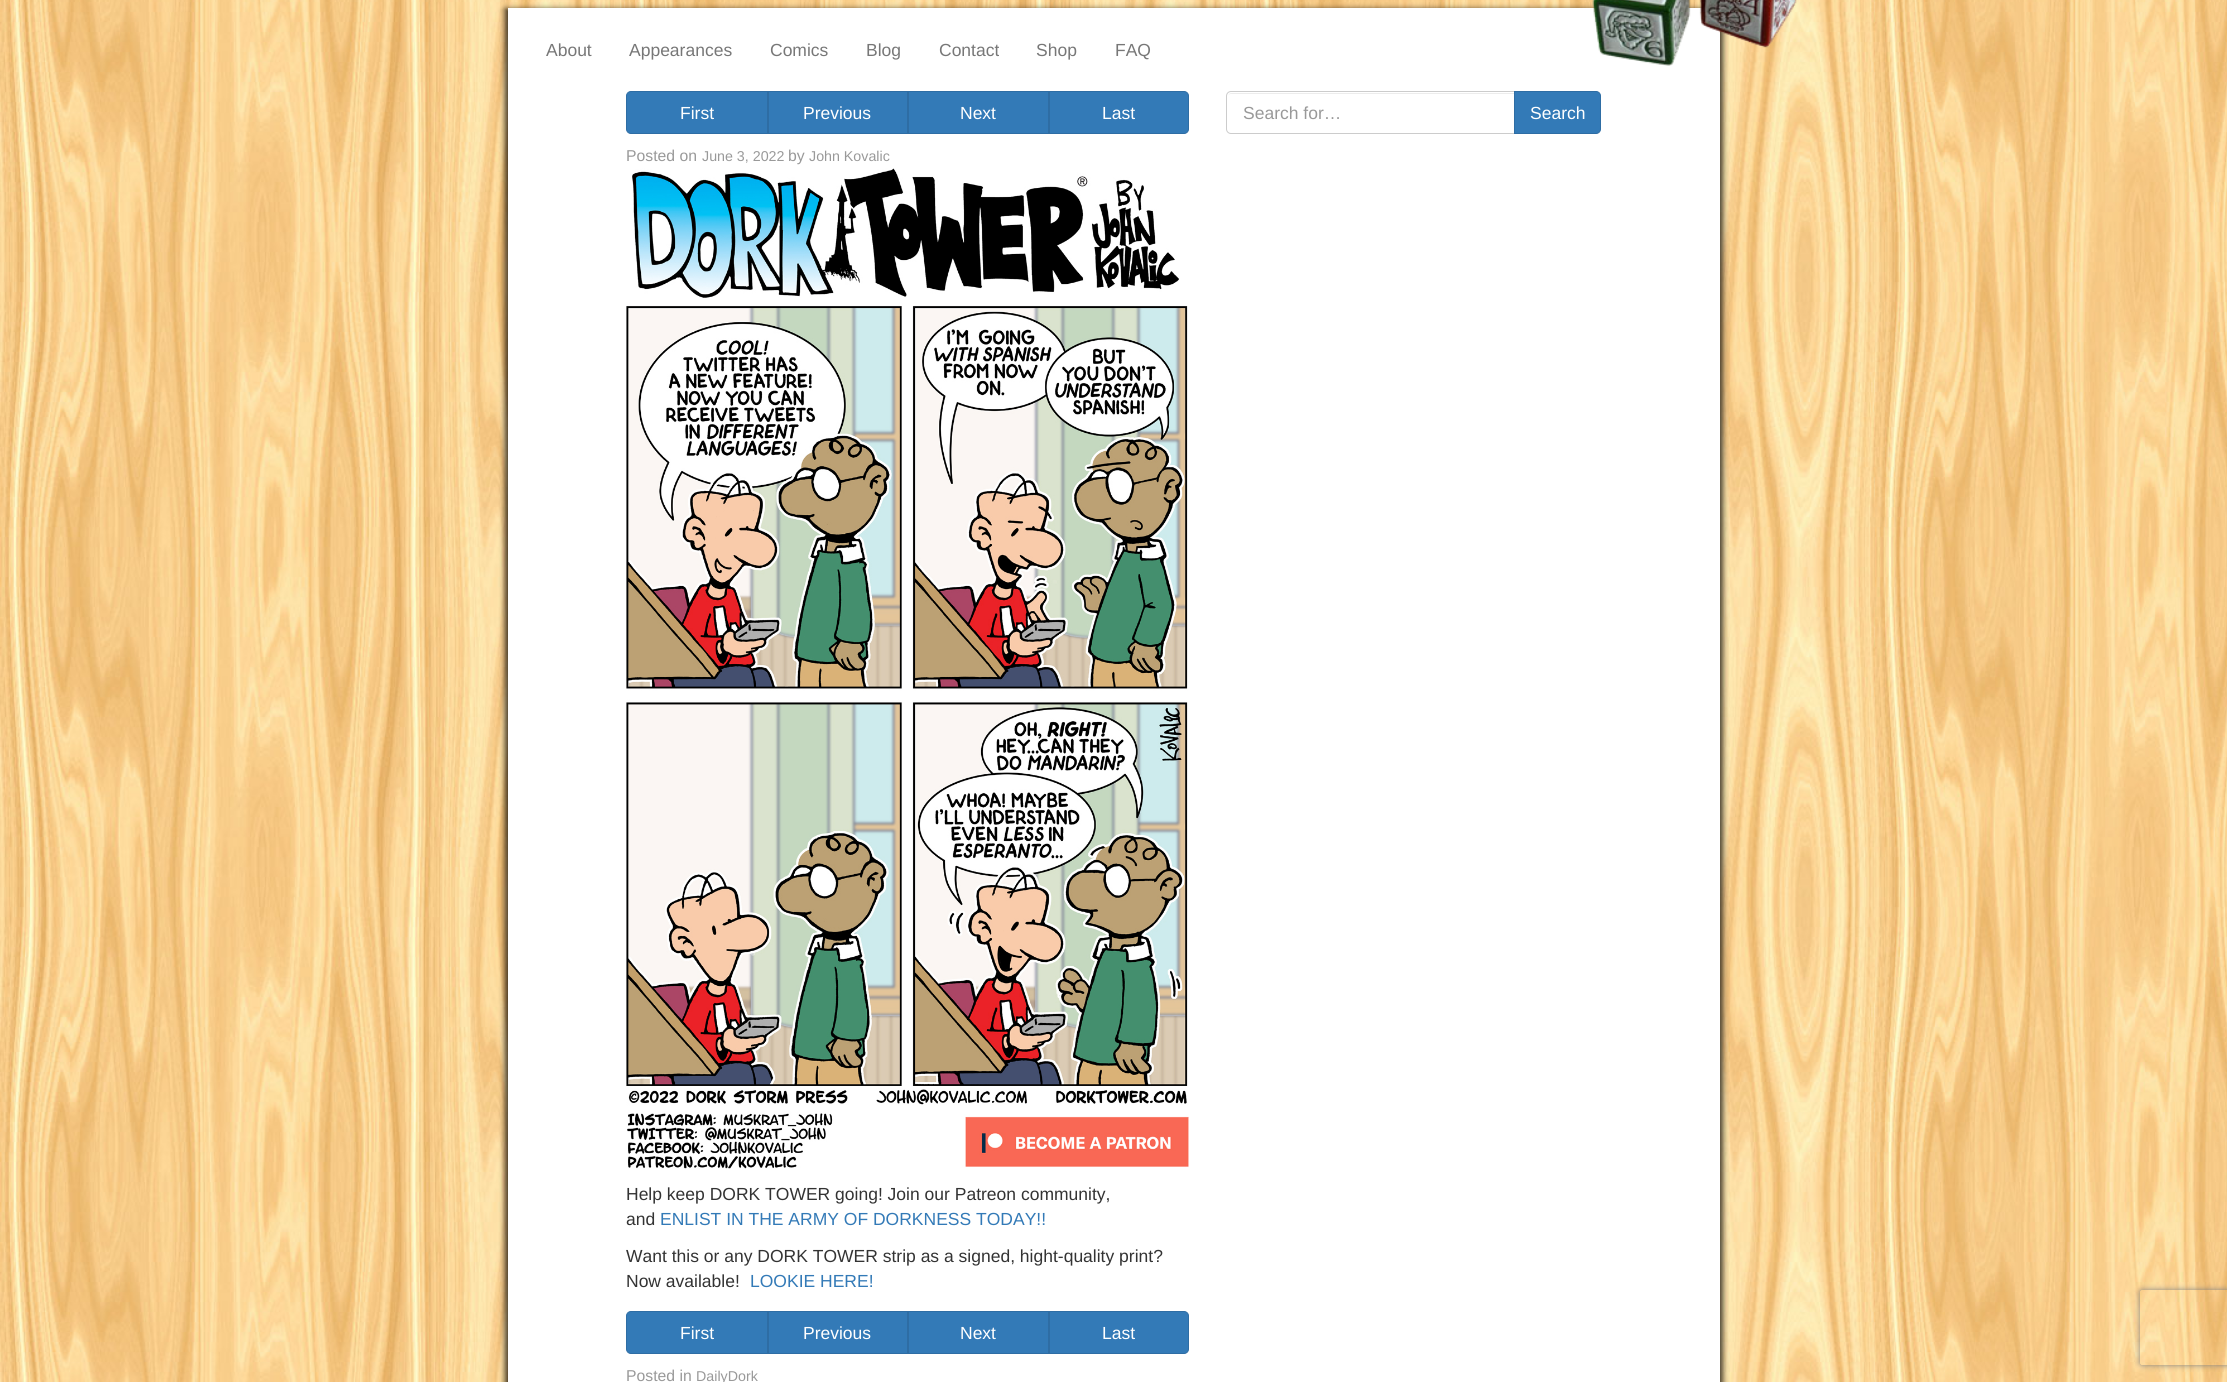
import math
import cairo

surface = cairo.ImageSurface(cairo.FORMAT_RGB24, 2227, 1382)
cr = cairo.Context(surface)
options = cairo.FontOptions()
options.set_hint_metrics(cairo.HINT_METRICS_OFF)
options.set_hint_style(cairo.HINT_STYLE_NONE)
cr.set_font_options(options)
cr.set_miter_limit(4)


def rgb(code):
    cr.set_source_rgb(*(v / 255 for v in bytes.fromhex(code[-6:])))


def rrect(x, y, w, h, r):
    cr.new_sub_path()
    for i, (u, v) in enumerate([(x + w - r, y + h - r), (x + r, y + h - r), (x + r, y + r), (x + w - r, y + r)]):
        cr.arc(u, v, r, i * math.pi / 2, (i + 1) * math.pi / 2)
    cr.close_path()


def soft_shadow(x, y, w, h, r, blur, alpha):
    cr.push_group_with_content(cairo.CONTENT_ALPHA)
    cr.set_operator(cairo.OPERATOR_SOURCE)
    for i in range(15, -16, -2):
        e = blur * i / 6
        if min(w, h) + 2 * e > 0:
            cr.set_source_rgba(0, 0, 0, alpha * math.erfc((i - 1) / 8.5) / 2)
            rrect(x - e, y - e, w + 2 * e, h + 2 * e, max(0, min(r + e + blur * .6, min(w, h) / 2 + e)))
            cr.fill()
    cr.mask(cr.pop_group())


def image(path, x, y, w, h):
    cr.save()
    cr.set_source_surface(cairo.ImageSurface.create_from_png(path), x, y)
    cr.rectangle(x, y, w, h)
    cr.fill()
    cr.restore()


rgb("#ffffff")
cr.paint()
image("img/1.png", 0, 0, 2227, 1382)
rgb("#000000")
soft_shadow(505, 9, 1218, 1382, 0, 3, 0.75)
rgb("#ffffff")
cr.rectangle(508, 8, 1212, 1374)
cr.fill()
image("img/2.png", 1592, 0, 205, 66)
rgb("#337ab7")
cr.new_path()
cr.move_to(631, 91.5)
cr.line_to(767.5, 91.5)
cr.line_to(767.5, 133.5)
cr.line_to(631, 133.5)
cr.curve_to(628.5, 133.5, 626.5, 131.5, 626.5, 129)
cr.line_to(626.5, 96)
cr.curve_to(626.5, 93.5, 628.5, 91.5, 631, 91.5)
cr.close_path()
cr.fill_preserve()
rgb("#2e6da4")
cr.set_line_width(1)
cr.stroke()
rgb("#337ab7")
cr.rectangle(768.5, 91.5, 139, 42)
cr.fill_preserve()
rgb("#2e6da4")
cr.stroke()
rgb("#337ab7")
cr.rectangle(908.5, 91.5, 140, 42)
cr.fill_preserve()
rgb("#2e6da4")
cr.stroke()
rgb("#337ab7")
cr.new_path()
cr.move_to(1049.5, 91.5)
cr.line_to(1184, 91.5)
cr.curve_to(1186.5, 91.5, 1188.5, 93.5, 1188.5, 96)
cr.line_to(1188.5, 129)
cr.curve_to(1188.5, 131.5, 1186.5, 133.5, 1184, 133.5)
cr.line_to(1049.5, 133.5)
cr.close_path()
cr.fill_preserve()
rgb("#2e6da4")
cr.stroke()
image("img/3.png", 626, 168, 563, 1001)
rgb("#337ab7")
cr.new_path()
cr.move_to(631, 1311.5)
cr.line_to(767.5, 1311.5)
cr.line_to(767.5, 1353.5)
cr.line_to(631, 1353.5)
cr.curve_to(628.5, 1353.5, 626.5, 1351.5, 626.5, 1349)
cr.line_to(626.5, 1316)
cr.curve_to(626.5, 1313.5, 628.5, 1311.5, 631, 1311.5)
cr.close_path()
cr.fill_preserve()
rgb("#2e6da4")
cr.stroke()
rgb("#337ab7")
cr.rectangle(768.5, 1311.5, 139, 42)
cr.fill_preserve()
rgb("#2e6da4")
cr.stroke()
rgb("#337ab7")
cr.rectangle(908.5, 1311.5, 140, 42)
cr.fill_preserve()
rgb("#2e6da4")
cr.stroke()
rgb("#337ab7")
cr.new_path()
cr.move_to(1049.5, 1311.5)
cr.line_to(1184, 1311.5)
cr.curve_to(1186.5, 1311.5, 1188.5, 1313.5, 1188.5, 1316)
cr.line_to(1188.5, 1349)
cr.curve_to(1188.5, 1351.5, 1186.5, 1353.5, 1184, 1353.5)
cr.line_to(1049.5, 1353.5)
cr.close_path()
cr.fill_preserve()
rgb("#2e6da4")
cr.stroke()
rgb("#ececec")
cr.new_path()
cr.move_to(1231, 94)
cr.line_to(1514, 94)
cr.line_to(1514, 93)
cr.line_to(1232, 93)
cr.curve_to(1229, 93, 1228, 95, 1228, 98)
cr.curve_to(1228, 95, 1229, 94, 1231, 94)
cr.close_path()
cr.fill()
cr.new_path()
cr.move_to(1231, 91.5)
cr.line_to(1514.5, 91.5)
cr.line_to(1514.5, 133.5)
cr.line_to(1231, 133.5)
cr.curve_to(1228.5, 133.5, 1226.5, 131.5, 1226.5, 129)
cr.line_to(1226.5, 96)
cr.curve_to(1226.5, 93.5, 1228.5, 91.5, 1231, 91.5)
cr.close_path()
rgb("#cccccc")
cr.stroke()
rgb("#337ab7")
cr.new_path()
cr.move_to(1514.5, 91.5)
cr.line_to(1596, 91.5)
cr.curve_to(1598.5, 91.5, 1600.5, 93.5, 1600.5, 96)
cr.line_to(1600.5, 129)
cr.curve_to(1600.5, 131.5, 1598.5, 133.5, 1596, 133.5)
cr.line_to(1514.5, 133.5)
cr.close_path()
cr.fill_preserve()
rgb("#2e6da4")
cr.stroke()
cr.save()
cr.set_fill_rule(cairo.FILL_RULE_EVEN_ODD)
cr.new_path()
cr.move_to(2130, 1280)
cr.line_to(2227, 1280)
cr.line_to(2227, 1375)
cr.line_to(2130, 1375)
cr.close_path()
cr.move_to(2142.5, 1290)
cr.line_to(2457.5, 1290)
cr.curve_to(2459, 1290, 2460, 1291, 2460, 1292.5)
cr.line_to(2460, 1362.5)
cr.curve_to(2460, 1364, 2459, 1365, 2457.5, 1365)
cr.line_to(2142.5, 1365)
cr.curve_to(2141, 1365, 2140, 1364, 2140, 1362.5)
cr.line_to(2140, 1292.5)
cr.curve_to(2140, 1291, 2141, 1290, 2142.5, 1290)
cr.close_path()
cr.clip()
rgb("#808080")
soft_shadow(2140, 1290, 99, 75, 2.5, 3, 1)
cr.restore()
cr.select_font_face("Liberation Sans")
cr.set_font_size(17.5)
rgb("#777777")
for x, y, s in [
    (546, 56, "About"),
    (629, 56, "Appearances"),
    (770, 56, "Comics"),
    (866, 56, "Blog"),
    (939, 56, "Contact"),
    (1036, 56, "Shop"),
    (1115, 56, "FAQ"),
]:
    cr.move_to(x, y)
    cr.show_text(s)
rgb("#ffffff")
for x, y, s in [
    (680, 119, "First"),
    (803, 119, "Previous"),
    (960, 119, "Next"),
    (1102, 119, "Last"),
]:
    cr.move_to(x, y)
    cr.show_text(s)
cr.set_font_size(15.75)
rgb("#999999")
cr.move_to(626, 161)
cr.show_text("Posted on")
cr.set_font_size(14.25)
cr.move_to(702, 161)
cr.show_text("June 3, 2022")
cr.set_font_size(15.75)
cr.move_to(788, 161)
cr.show_text("by")
cr.set_font_size(14.25)
cr.move_to(809, 161)
cr.show_text("John Kovalic")
cr.set_font_size(17.5)
rgb("#333333")
cr.move_to(626, 1200)
cr.show_text("Help keep DORK TOWER going! Join our Patreon community,")
cr.move_to(626, 1225)
cr.show_text("and")
rgb("#337ab7")
cr.move_to(660, 1225)
cr.show_text("ENLIST IN THE ARMY OF DORKNESS TODAY!!")
rgb("#333333")
cr.move_to(626, 1262)
cr.show_text("Want this or any DORK TOWER strip as a signed, hight-quality print?")
cr.move_to(626, 1287)
cr.show_text("Now available!")
rgb("#337ab7")
cr.move_to(750, 1287)
cr.show_text("LOOKIE HERE!")
rgb("#ffffff")
for x, y, s in [
    (680, 1339, "First"),
    (803, 1339, "Previous"),
    (960, 1339, "Next"),
    (1102, 1339, "Last"),
]:
    cr.move_to(x, y)
    cr.show_text(s)
cr.set_font_size(15.75)
rgb("#999999")
cr.move_to(626, 1381)
cr.show_text("Posted in")
cr.set_font_size(14.25)
cr.move_to(696, 1381)
cr.show_text("DailyDork")
cr.set_font_size(17.5)
cr.move_to(1243, 119)
cr.show_text("Search for…")
rgb("#ffffff")
cr.move_to(1530, 119)
cr.show_text("Search")
surface.write_to_png("page.png")
